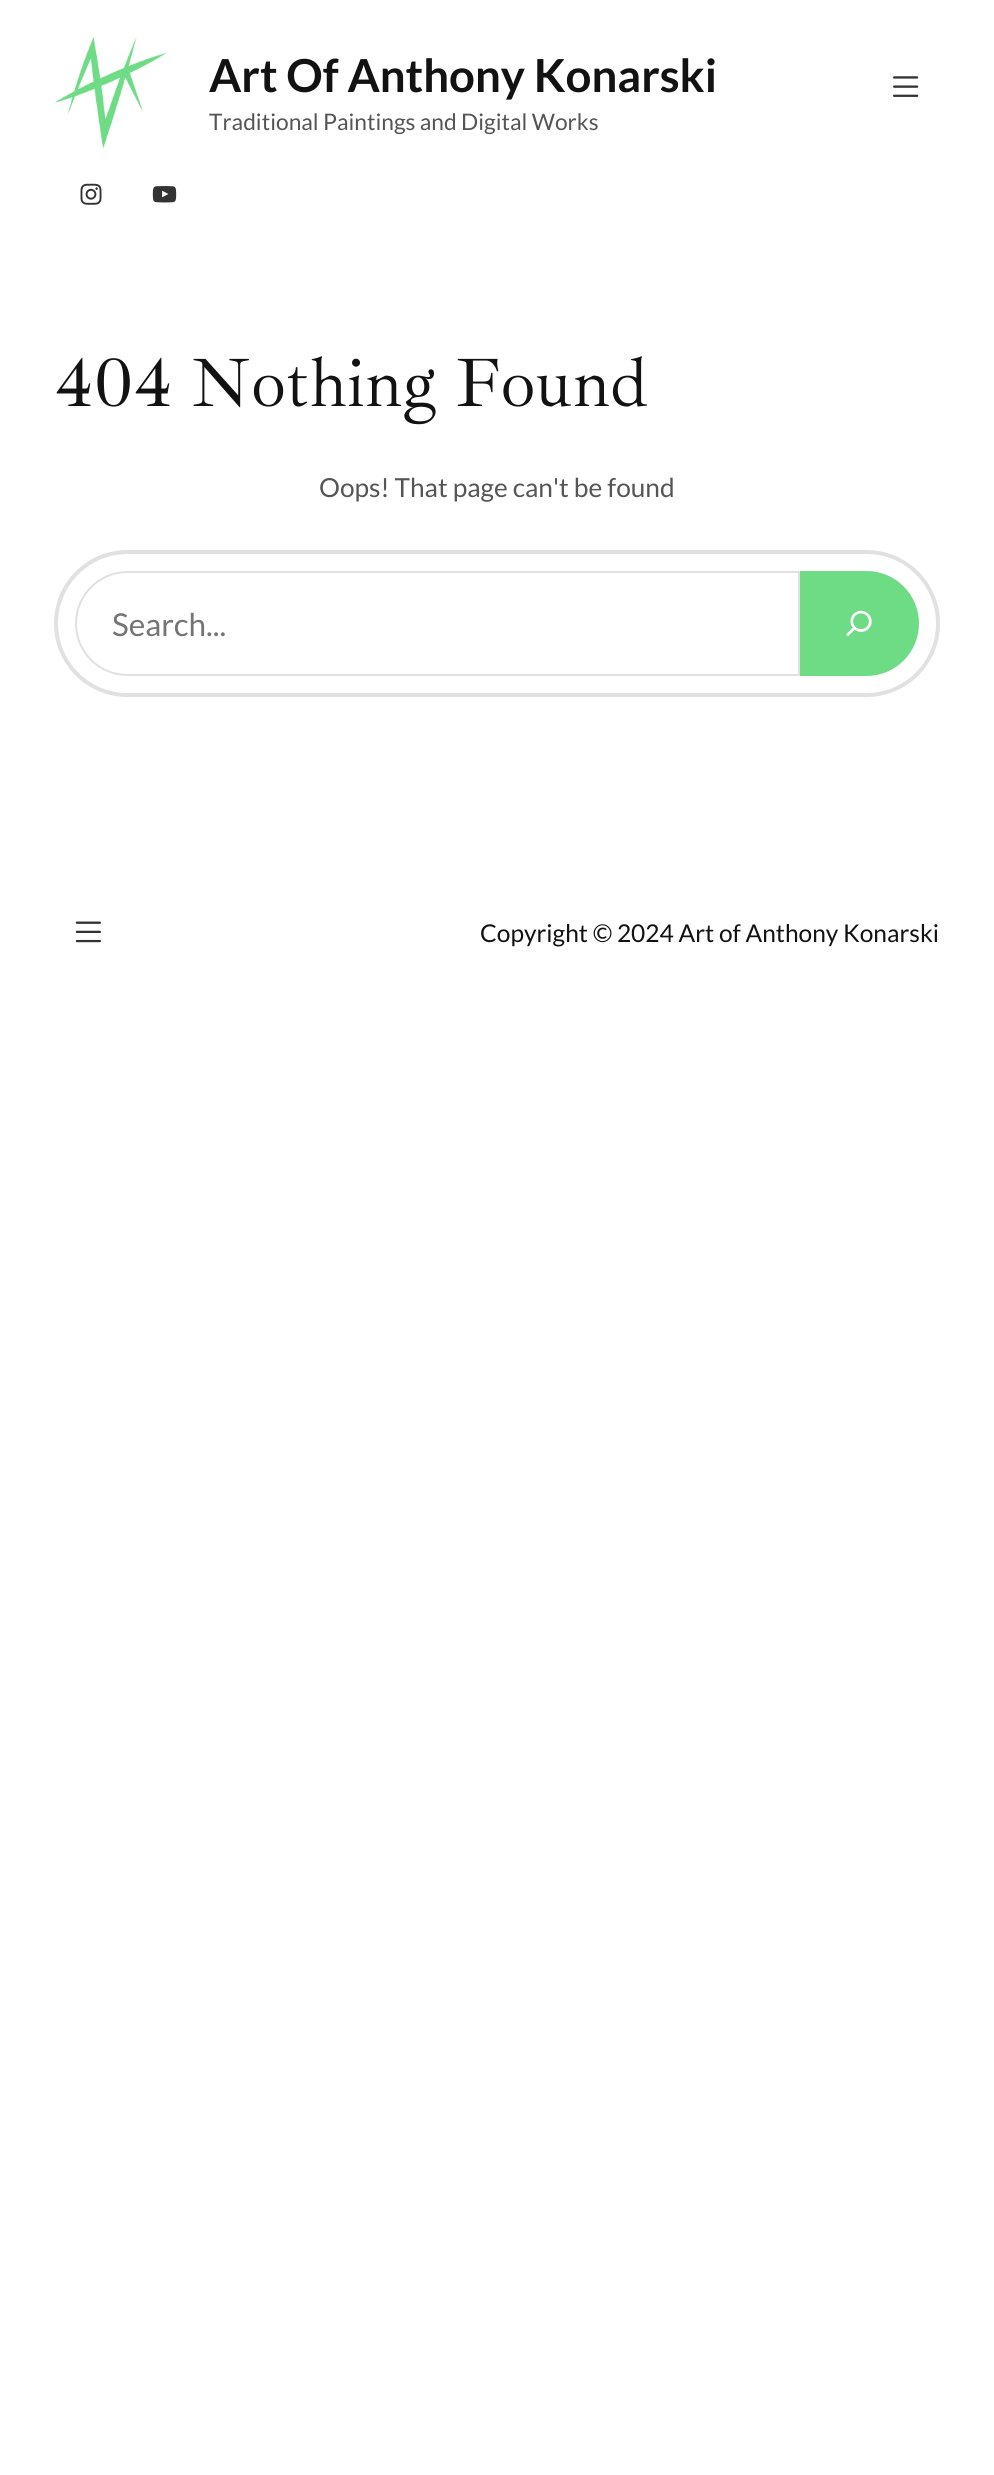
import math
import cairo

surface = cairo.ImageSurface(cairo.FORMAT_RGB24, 994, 2475)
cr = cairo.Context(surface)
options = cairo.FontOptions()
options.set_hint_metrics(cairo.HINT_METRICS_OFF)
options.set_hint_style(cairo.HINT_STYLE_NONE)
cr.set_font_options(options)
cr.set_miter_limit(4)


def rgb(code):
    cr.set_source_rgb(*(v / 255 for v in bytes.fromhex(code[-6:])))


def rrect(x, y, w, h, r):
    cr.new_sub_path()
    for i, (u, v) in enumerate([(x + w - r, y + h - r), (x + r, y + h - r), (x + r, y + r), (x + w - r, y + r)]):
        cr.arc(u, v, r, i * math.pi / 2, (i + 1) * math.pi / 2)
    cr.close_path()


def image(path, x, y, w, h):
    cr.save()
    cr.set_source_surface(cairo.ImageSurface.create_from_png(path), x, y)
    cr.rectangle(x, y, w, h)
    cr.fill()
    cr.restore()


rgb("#ffffff")
cr.paint()
image("img/1.png", 54, 37, 113, 112)
image("img/2.png", 893, 76, 26, 21)
image("img/3.png", 80, 183, 22, 22)
image("img/4.png", 152, 186, 25, 17)
rrect(56, 552, 882, 143, 71.5)
rgb("#e1e1e1")
cr.set_line_width(4)
cr.stroke()
cr.new_path()
cr.move_to(127.5, 572)
cr.line_to(799, 572)
cr.line_to(799, 675)
cr.line_to(127.5, 675)
cr.curve_to(99, 675, 76, 652, 76, 623.5)
cr.curve_to(76, 595, 99, 572, 127.5, 572)
cr.close_path()
cr.set_line_width(2)
cr.stroke()
rgb("#6edb85")
cr.new_path()
cr.move_to(800, 571)
cr.line_to(866.5, 571)
cr.curve_to(895.5, 571, 919, 594.5, 919, 623.5)
cr.curve_to(919, 652.5, 895.5, 676, 866.5, 676)
cr.line_to(800, 676)
cr.close_path()
cr.fill()
image("img/5.png", 846, 610, 26, 27)
image("img/6.png", 75, 921, 26, 22)
cr.select_font_face("Lato", cairo.FONT_SLANT_NORMAL, cairo.FONT_WEIGHT_BOLD)
cr.set_font_size(45.5)
rgb("#121212")
cr.move_to(209, 92)
cr.show_text("Art Of Anthony Konarski")
cr.select_font_face("Lato")
cr.set_font_size(22.75)
rgb("#555555")
cr.move_to(209, 130)
cr.show_text("Traditional Paintings and Digital Works")
cr.select_font_face("Ibarra Real Nova")
cr.set_font_size(70)
rgb("#121212")
cr.move_to(55, 406)
cr.show_text("404 Nothing Found")
cr.select_font_face("Lato")
cr.set_font_size(26.25)
rgb("#555555")
cr.move_to(319, 497)
cr.show_text("Oops! That page can't be found")
cr.set_font_size(31.5)
rgb("#757575")
cr.move_to(112, 636)
cr.show_text("Search...")
cr.set_font_size(24.5)
rgb("#121212")
cr.move_to(480, 942)
cr.show_text("Copyright © 2024 Art of Anthony Konarski")
surface.write_to_png("page.png")
